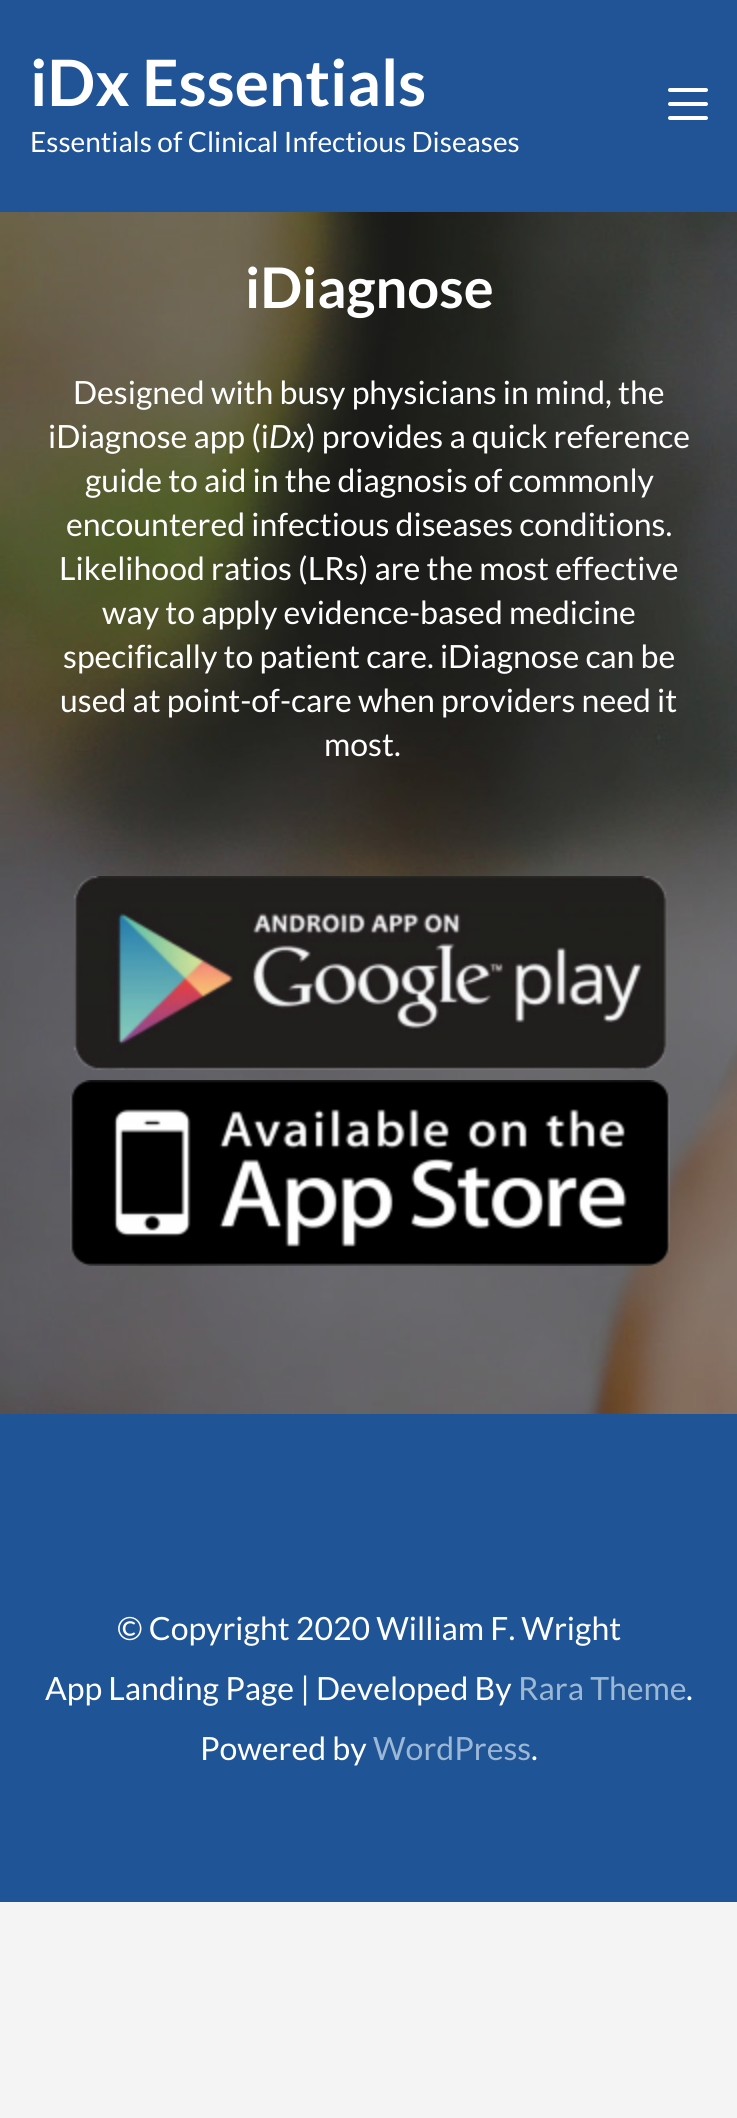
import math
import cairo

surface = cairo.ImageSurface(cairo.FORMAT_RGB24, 737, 2118)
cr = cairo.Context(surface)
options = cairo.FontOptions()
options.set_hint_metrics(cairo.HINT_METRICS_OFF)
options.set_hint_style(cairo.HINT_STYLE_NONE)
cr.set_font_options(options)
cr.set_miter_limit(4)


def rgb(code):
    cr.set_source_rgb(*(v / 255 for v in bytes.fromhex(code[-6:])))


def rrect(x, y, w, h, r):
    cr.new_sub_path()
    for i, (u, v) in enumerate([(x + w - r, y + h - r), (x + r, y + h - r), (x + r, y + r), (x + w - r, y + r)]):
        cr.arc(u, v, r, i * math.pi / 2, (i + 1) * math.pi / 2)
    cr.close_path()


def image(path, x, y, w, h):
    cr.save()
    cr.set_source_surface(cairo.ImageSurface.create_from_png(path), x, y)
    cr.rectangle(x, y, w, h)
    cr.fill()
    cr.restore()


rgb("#f4f4f4")
cr.paint()
rgb("#205497")
cr.rectangle(0, 0, 737, 212)
cr.fill()
rgb("#ffffff")
rrect(668, 88, 40, 4, 2)
cr.fill()
rrect(668, 102, 40, 4, 2)
cr.fill()
rrect(668, 116, 40, 4, 2)
cr.fill()
image("img/1.png", 0, 212, 737, 1202)
image("img/2.png", 73, 876, 595, 194)
image("img/3.png", 70, 1080, 600, 186)
rgb("#1f5497")
cr.rectangle(0, 1414, 737, 488)
cr.fill()
cr.select_font_face("Lato", cairo.FONT_SLANT_NORMAL, cairo.FONT_WEIGHT_BOLD)
cr.set_font_size(64)
rgb("#ffffff")
cr.move_to(30, 106)
cr.show_text("iDx Essentials")
cr.select_font_face("Lato")
cr.set_font_size(28)
cr.move_to(30, 152)
cr.show_text("Essentials of Clinical Infectious Diseases")
cr.select_font_face("Lato", cairo.FONT_SLANT_NORMAL, cairo.FONT_WEIGHT_BOLD)
cr.set_font_size(56)
cr.move_to(245, 308)
cr.show_text("iDiagnose")
cr.select_font_face("Lato")
cr.set_font_size(32)
cr.move_to(73, 404)
cr.show_text("Designed with busy physicians in mind, the")
cr.move_to(48, 448)
cr.show_text("iDiagnose app (i")
cr.select_font_face("Lato", cairo.FONT_SLANT_ITALIC)
cr.move_to(269, 448)
cr.show_text("Dx")
cr.select_font_face("Lato")
for x, y, s in [
    (306, 448, ") provides a quick reference"),
    (85, 492, "guide to aid in the diagnosis of commonly"),
    (66, 536, "encountered infectious diseases conditions."),
    (59, 580, "Likelihood ratios (LRs) are the most effective"),
    (102, 624, "way to apply evidence-based medicine"),
    (63, 668, "specifically to patient care. iDiagnose can be"),
    (60, 712, "used at point-of-care when providers need it"),
    (324, 756, "most."),
    (117, 1640, "© Copyright 2020 William F. Wright"),
    (45, 1700, "App Landing Page | Developed By"),
]:
    cr.move_to(x, y)
    cr.show_text(s)
rgb("#9cb8d4")
cr.move_to(518, 1700)
cr.show_text("Rara Theme")
rgb("#ffffff")
cr.move_to(686, 1700)
cr.show_text(".")
cr.move_to(200, 1760)
cr.show_text("Powered by")
rgb("#9cb8d4")
cr.move_to(373, 1760)
cr.show_text("WordPress")
rgb("#ffffff")
cr.move_to(531, 1760)
cr.show_text(".")
surface.write_to_png("page.png")
